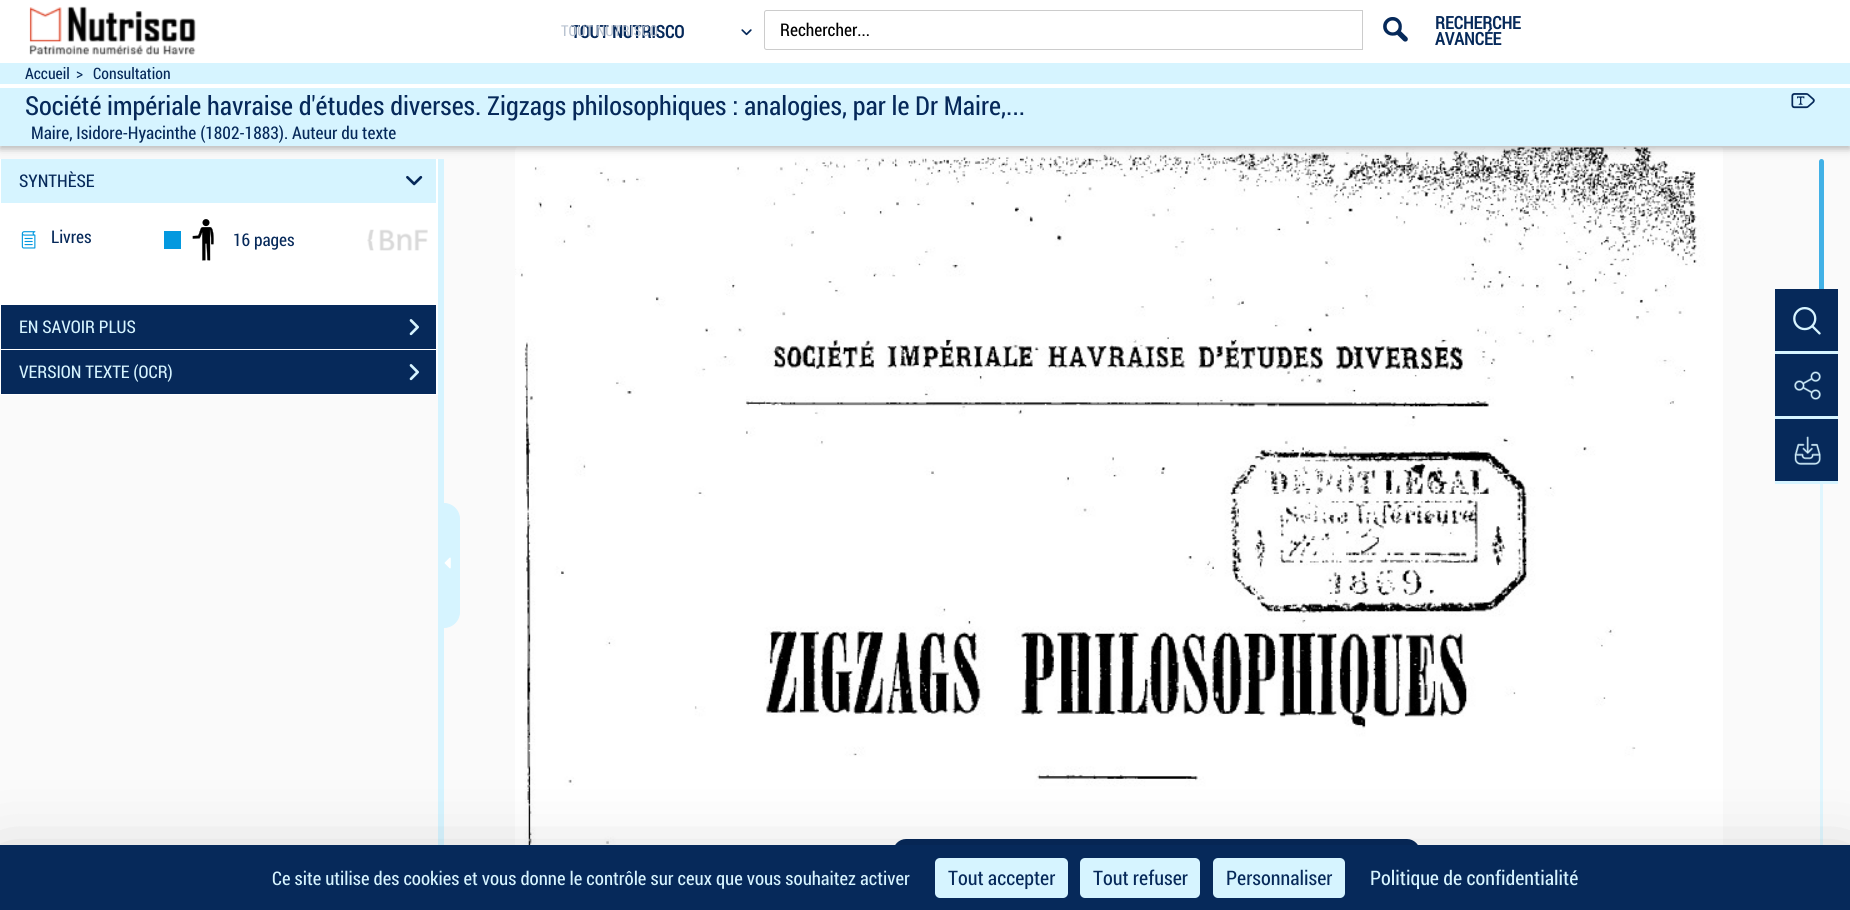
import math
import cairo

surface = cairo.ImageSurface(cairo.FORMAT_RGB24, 1850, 910)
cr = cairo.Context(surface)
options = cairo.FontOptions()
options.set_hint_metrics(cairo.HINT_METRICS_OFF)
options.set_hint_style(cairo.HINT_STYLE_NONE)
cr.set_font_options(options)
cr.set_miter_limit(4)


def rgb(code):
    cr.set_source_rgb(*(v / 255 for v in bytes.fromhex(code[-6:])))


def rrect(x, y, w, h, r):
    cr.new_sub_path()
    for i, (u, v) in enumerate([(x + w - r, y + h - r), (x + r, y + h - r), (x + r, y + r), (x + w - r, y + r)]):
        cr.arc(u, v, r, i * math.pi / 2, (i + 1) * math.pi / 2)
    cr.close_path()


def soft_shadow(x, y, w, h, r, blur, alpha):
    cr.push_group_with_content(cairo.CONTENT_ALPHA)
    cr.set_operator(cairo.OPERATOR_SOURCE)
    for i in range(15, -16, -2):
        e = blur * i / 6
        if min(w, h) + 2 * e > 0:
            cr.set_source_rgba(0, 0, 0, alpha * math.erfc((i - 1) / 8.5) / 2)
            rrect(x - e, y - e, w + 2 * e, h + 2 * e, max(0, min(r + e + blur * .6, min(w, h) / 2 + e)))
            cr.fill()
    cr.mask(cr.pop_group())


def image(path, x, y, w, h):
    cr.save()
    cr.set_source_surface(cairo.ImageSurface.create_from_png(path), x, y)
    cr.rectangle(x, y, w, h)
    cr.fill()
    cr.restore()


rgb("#fafafa")
cr.paint()
image("img/11.png", 515, 147, 1208, 698)
rgb("#dff6fe")
rrect(1820, 159, 3, 739, 1.5)
cr.fill()
rgb("#42b1e6")
rrect(1819, 159, 5, 289, 2.5)
cr.fill()
rgb("#000000")
soft_shadow(0, 65, 1850, 84, 0, 6, 0.12)
soft_shadow(0, 65, 1850, 84, 0, 2.5, 0.16)
rgb("#ffffff")
cr.rectangle(0, 0, 1850, 63)
cr.fill()
image("img/1.png", 29, 6, 167, 49)
image("img/2.png", 741, 29, 11, 7)
cr.new_path()
cr.move_to(766.5, 10.5)
cr.line_to(1362.5, 10.5)
cr.line_to(1362.5, 49.5)
cr.line_to(766.5, 49.5)
cr.curve_to(765.5, 49.5, 764.5, 48.5, 764.5, 47.5)
cr.line_to(764.5, 12.5)
cr.curve_to(764.5, 11.5, 765.5, 10.5, 766.5, 10.5)
cr.close_path()
rgb("#cccccc")
cr.set_line_width(1)
cr.stroke()
image("img/3.png", 1383, 17, 25, 25)
rgb("#d6f4ff")
cr.rectangle(0, 63, 1850, 83)
cr.fill()
rgb("#ffffff")
cr.rectangle(0, 84, 1850, 4)
cr.fill()
image("img/4.png", 1791, 93, 24, 16)
for x, y, w, h, color in [
    (438, 159, 6, 686, "#d6f4ff"),
    (0, 159, 438, 236, "#ffffff"),
    (1, 159, 435, 44, "#d6f4ff"),
]:
    rgb(color)
    cr.rectangle(x, y, w, h)
    cr.fill()
image("img/5.png", 406, 175, 17, 11)
image("img/6.png", 21, 231, 15, 18)
rgb("#0499df")
cr.rectangle(164, 231, 17, 18)
cr.fill()
image("img/7.png", 192, 219, 22, 42)
image("img/8.png", 367, 229, 61, 22)
rgb("#06295a")
cr.rectangle(1, 305, 435, 44)
cr.fill()
image("img/9.png", 409, 319, 10, 17)
cr.rectangle(1, 350, 435, 44)
cr.fill()
image("img/9.png", 409, 364, 10, 17)
rgb("#d6f4ff")
cr.new_path()
cr.move_to(444.5, 503.5)
cr.line_to(444, 503.5)
cr.curve_to(452.5, 503.5, 459.5, 510.5, 459.5, 519)
cr.line_to(459.5, 612)
cr.curve_to(459.5, 620.5, 452.5, 627.5, 444, 627.5)
cr.line_to(444.5, 627.5)
cr.close_path()
cr.fill_preserve()
cr.stroke()
image("img/10.png", 444, 557, 7, 12)
rgb("#06295a")
cr.rectangle(1775, 289, 63, 62)
cr.fill()
image("img/12.png", 1793, 307, 28, 28)
rgb("#d6f4ff")
cr.rectangle(1775, 351, 63, 3)
cr.fill()
rgb("#06295a")
cr.rectangle(1775, 354, 63, 62)
cr.fill()
image("img/13.png", 1794, 371, 27, 29)
rgb("#d6f4ff")
cr.rectangle(1775, 416, 63, 3)
cr.fill()
rgb("#06295a")
cr.rectangle(1775, 419, 63, 62)
cr.fill()
image("img/14.png", 1794, 436, 27, 29)
rgb("#d6f4ff")
cr.rectangle(1775, 481, 63, 3)
cr.fill()
rgb("#06295a")
cr.new_path()
cr.move_to(906, 839)
cr.line_to(1407, 839)
cr.curve_to(1414, 839, 1420, 845, 1420, 852)
cr.line_to(1420, 910)
cr.line_to(893, 910)
cr.line_to(893, 852)
cr.curve_to(893, 845, 899, 839, 906, 839)
cr.close_path()
cr.fill()
rgb("#000000")
soft_shadow(0, 870, 1850, 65, 0, 37.5, 0.25)
rgb("#06295a")
cr.rectangle(0, 845, 1850, 65)
cr.fill()
rgb("#d6f4ff")
rrect(935, 858, 133, 40, 5)
cr.fill()
rrect(1080, 858, 120, 40, 5)
cr.fill()
rrect(1213, 858, 132, 40, 5)
cr.fill()
cr.select_font_face("Roboto Condensed", cairo.FONT_SLANT_NORMAL, cairo.FONT_WEIGHT_BOLD)
cr.set_font_size(17.5)
rgb("#06295a")
cr.move_to(571, 38)
cr.show_text("TOUT NUTRISCO")
cr.select_font_face("Roboto Condensed")
cr.set_font_size(15)
rgb("#b9c3d1")
cr.move_to(561, 36)
cr.show_text("TOUT NUTRISCO")
cr.set_font_size(17.5)
rgb("#000000")
cr.move_to(780, 36)
cr.show_text("Rechercher...")
cr.select_font_face("Roboto Condensed", cairo.FONT_SLANT_NORMAL, cairo.FONT_WEIGHT_BOLD)
rgb("#06295a")
cr.move_to(1435, 29)
cr.show_text("RECHERCHE")
cr.move_to(1435, 45)
cr.show_text("AVANCÉE")
cr.select_font_face("Roboto Condensed")
cr.set_font_size(15.75)
for x, y, s in [
    (25, 79, "Accueil"),
    (76, 79, ">"),
    (93, 79, "Consultation"),
]:
    cr.move_to(x, y)
    cr.show_text(s)
cr.set_font_size(26.25)
cr.move_to(25, 115)
cr.show_text("Société impériale havraise d'études diverses. Zigzags philosophiques : analogies, par le Dr Maire,...")
cr.set_font_size(17.5)
for x, y, s in [
    (31, 139, "Maire, Isidore-Hyacinthe (1802-1883). Auteur du texte"),
    (19, 187, "SYNTHÈSE"),
    (51, 243, "Livres"),
    (233, 246, "16 pages"),
]:
    cr.move_to(x, y)
    cr.show_text(s)
rgb("#d6f4ff")
cr.move_to(19, 333)
cr.show_text("EN SAVOIR PLUS")
cr.move_to(19, 378)
cr.show_text("VERSION TEXTE (OCR)")
cr.set_font_size(18.75)
cr.move_to(272, 885)
cr.show_text("Ce site utilise des cookies et vous donne le contrôle sur ceux que vous souhaitez activer")
cr.set_font_size(20)
rgb("#06295a")
for x, y, s in [
    (948, 885, "Tout accepter"),
    (1093, 885, "Tout refuser"),
    (1226, 885, "Personnaliser"),
]:
    cr.move_to(x, y)
    cr.show_text(s)
rgb("#d6f4ff")
cr.move_to(1370, 885)
cr.show_text("Politique de confidentialité")
surface.write_to_png("page.png")
